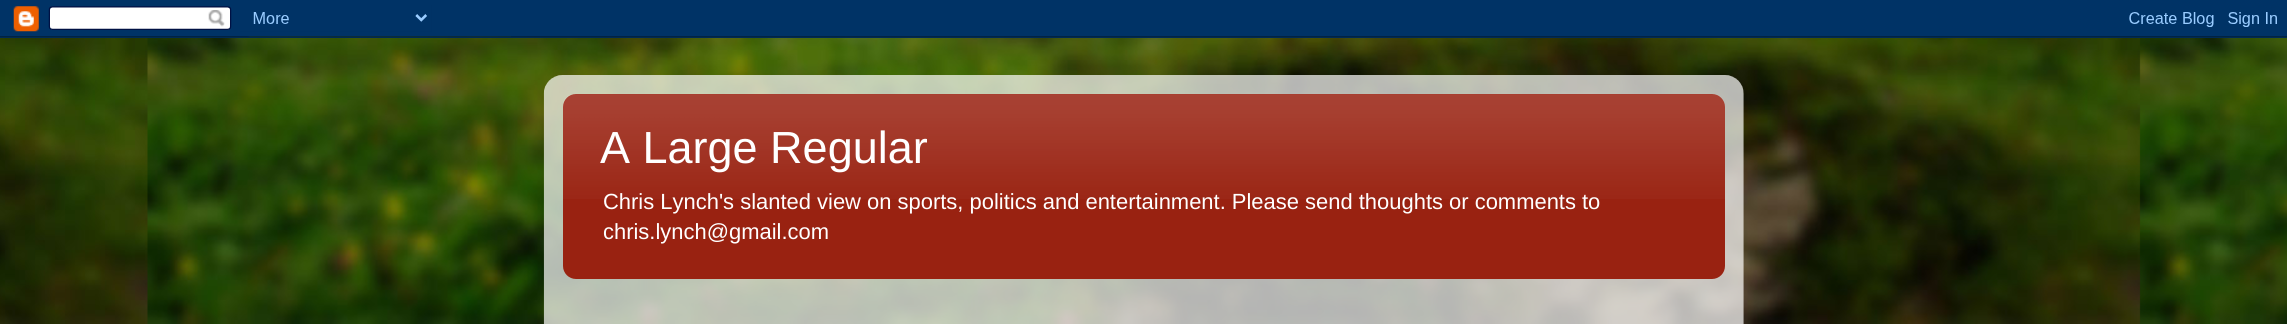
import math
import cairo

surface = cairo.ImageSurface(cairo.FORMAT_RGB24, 2287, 324)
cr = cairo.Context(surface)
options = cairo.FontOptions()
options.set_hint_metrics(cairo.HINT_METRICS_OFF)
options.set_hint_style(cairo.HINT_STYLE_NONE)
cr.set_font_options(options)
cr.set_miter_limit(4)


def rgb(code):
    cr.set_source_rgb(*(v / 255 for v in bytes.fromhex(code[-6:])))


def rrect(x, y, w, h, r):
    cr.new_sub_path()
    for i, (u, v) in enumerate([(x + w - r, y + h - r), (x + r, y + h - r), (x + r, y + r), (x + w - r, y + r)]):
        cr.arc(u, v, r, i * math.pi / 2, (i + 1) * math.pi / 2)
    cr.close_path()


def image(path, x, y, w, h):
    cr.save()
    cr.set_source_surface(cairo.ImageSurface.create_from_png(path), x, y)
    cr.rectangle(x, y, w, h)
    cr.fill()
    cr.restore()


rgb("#ffffff")
cr.paint()
image("img/1.png", 0, 36, 2287, 288)
image("img/2.png", 0, 0, 2287, 38)
image("img/3.png", 543, 75, 1201, 249)
rgb("#992211")
rrect(563, 94, 1162, 185, 13)
cr.fill()
image("img/4.png", 563, 94, 1162, 105)
cr.select_font_face("Liberation Sans")
cr.set_font_size(45)
rgb("#ffffff")
cr.move_to(600, 163)
cr.show_text("A Large Regular")
cr.set_font_size(21.95)
cr.move_to(603, 209)
cr.show_text("Chris Lynch's slanted view on sports, politics and entertainment. Please send thoughts or comments to")
cr.move_to(603, 239)
cr.show_text("chris.lynch@gmail.com")
surface.write_to_png("page.png")
